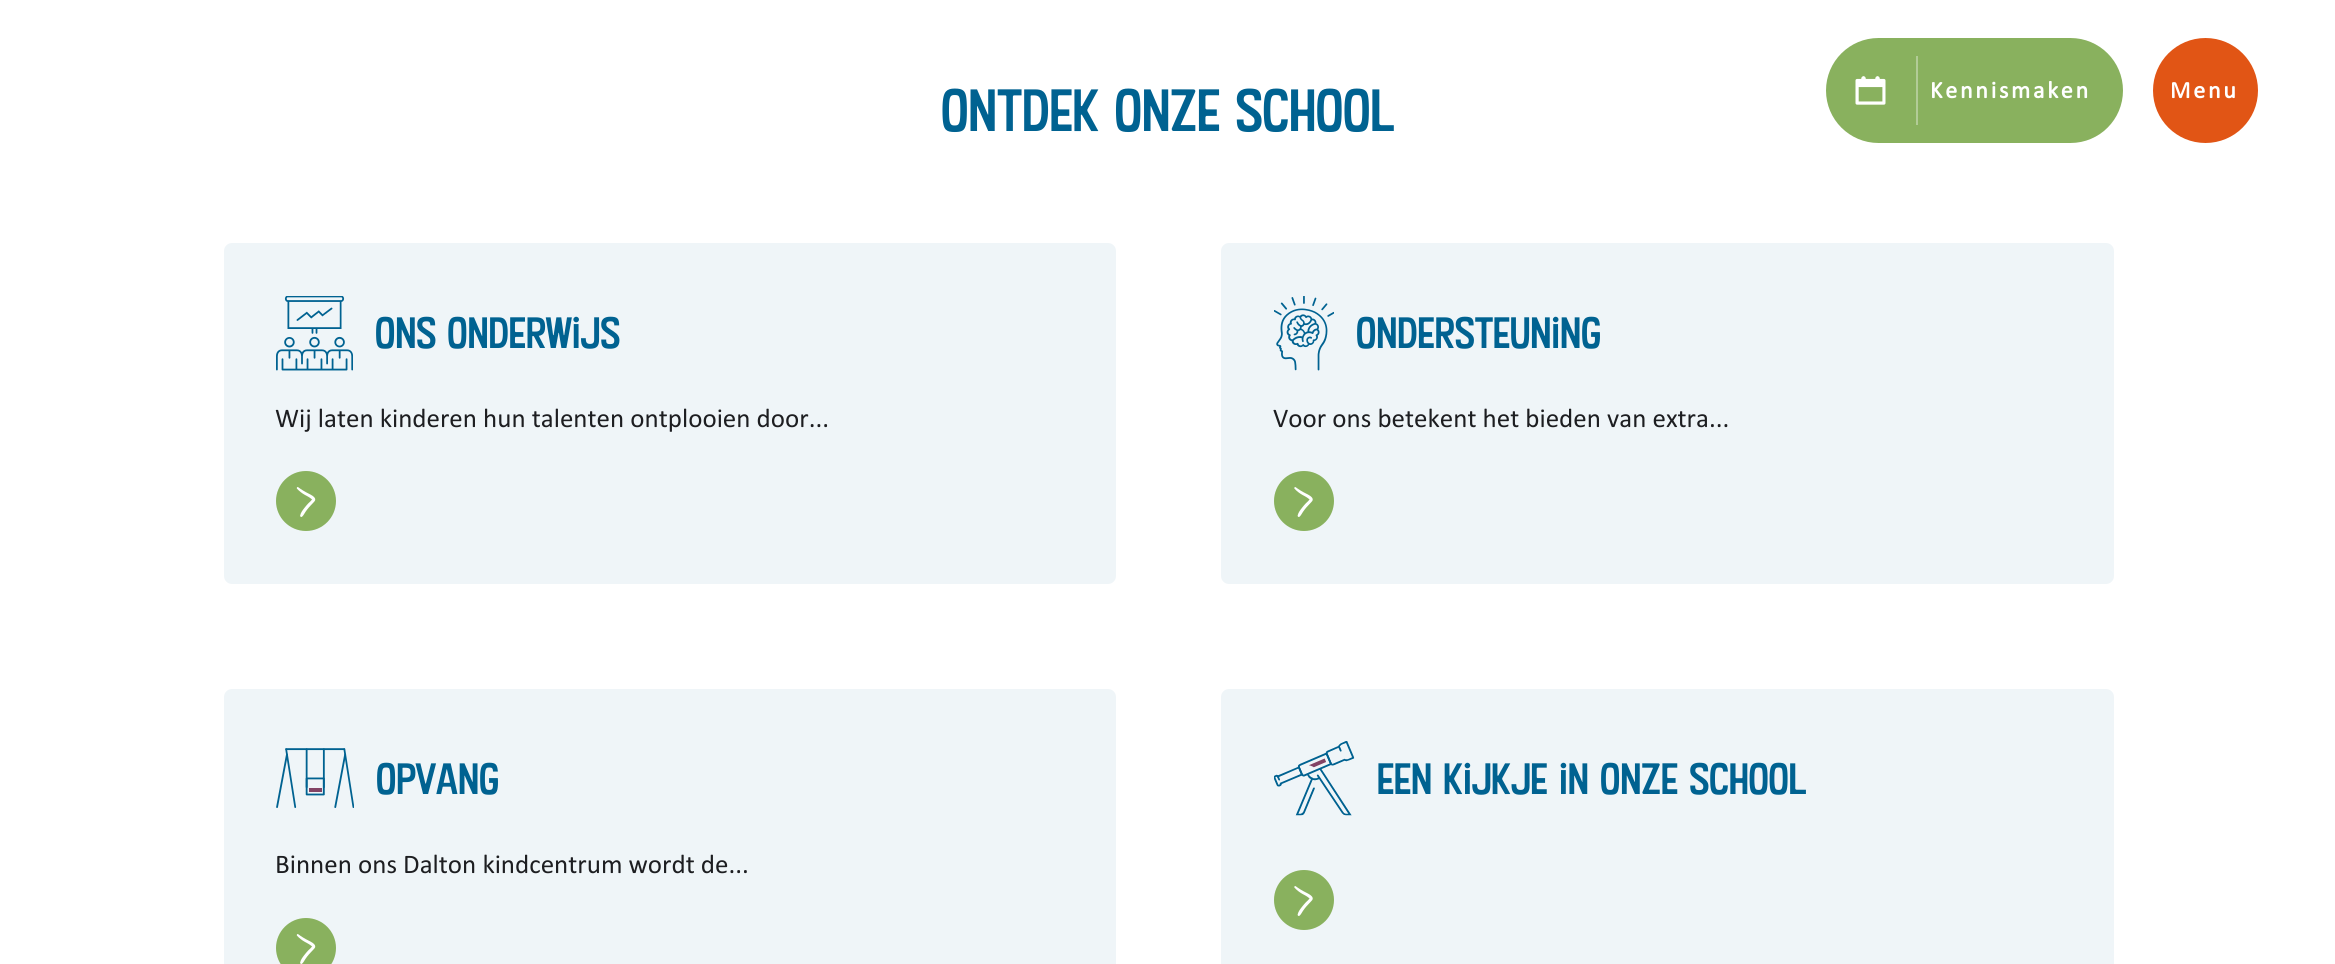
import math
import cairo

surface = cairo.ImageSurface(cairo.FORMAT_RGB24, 2335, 964)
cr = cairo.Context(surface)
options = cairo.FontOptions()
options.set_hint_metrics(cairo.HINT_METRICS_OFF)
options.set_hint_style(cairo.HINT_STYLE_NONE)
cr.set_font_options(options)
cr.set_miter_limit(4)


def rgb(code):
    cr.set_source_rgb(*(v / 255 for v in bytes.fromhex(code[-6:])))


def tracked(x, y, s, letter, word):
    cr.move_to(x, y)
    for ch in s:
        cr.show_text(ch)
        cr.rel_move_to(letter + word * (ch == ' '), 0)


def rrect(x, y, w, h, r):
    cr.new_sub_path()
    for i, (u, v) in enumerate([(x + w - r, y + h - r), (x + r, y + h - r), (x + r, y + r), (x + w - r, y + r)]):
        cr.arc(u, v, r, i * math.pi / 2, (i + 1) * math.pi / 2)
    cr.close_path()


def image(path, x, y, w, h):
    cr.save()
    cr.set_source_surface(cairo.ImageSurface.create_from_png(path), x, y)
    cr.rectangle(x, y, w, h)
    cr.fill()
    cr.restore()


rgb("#ffffff")
cr.paint()
rgb("#eff5f8")
rrect(224, 243, 892, 341, 8)
cr.fill()
image("img/1.png", 276, 296, 77, 75)
rgb("#89b15e")
cr.arc(306, 501, 30, 0, 2 * math.pi)
cr.fill()
image("img/2.png", 296, 487, 20, 30)
rgb("#eff5f8")
rrect(1221, 243, 893, 341, 8)
cr.fill()
image("img/3.png", 1274, 296, 60, 75)
rgb("#89b15e")
cr.arc(1304, 501, 30, 0, 2 * math.pi)
cr.fill()
image("img/4.png", 1294, 487, 19, 30)
rgb("#eff5f8")
rrect(224, 689, 892, 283, 8)
cr.fill()
image("img/5.png", 276, 748, 78, 60)
rgb("#89b15e")
cr.arc(306, 948, 30, 0, 2 * math.pi)
cr.fill()
image("img/2.png", 296, 934, 20, 30)
rgb("#eff5f8")
rrect(1221, 689, 893, 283, 8)
cr.fill()
image("img/6.png", 1274, 741, 81, 75)
rgb("#89b15e")
cr.arc(1304, 900, 30, 0, 2 * math.pi)
cr.fill()
image("img/4.png", 1294, 886, 19, 30)
rrect(1826, 38, 297, 105, 52.5)
cr.fill()
image("img/7.png", 1855, 76, 31, 29)
rgb("#b2cc96")
cr.rectangle(1916, 56, 2, 69)
cr.fill()
rgb("#e15515")
cr.arc(2205.5, 90.5, 52.5, 0, 2 * math.pi)
cr.fill()
cr.select_font_face("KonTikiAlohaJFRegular")
cr.set_font_size(57)
rgb("#006291")
cr.move_to(941, 131)
cr.show_text("Ontdek onze school")
cr.set_font_size(42)
cr.move_to(375, 348)
cr.show_text("Ons onderwijs")
cr.select_font_face("Calibri")
cr.set_font_size(27)
rgb("#1d1e21")
cr.move_to(275, 427)
cr.show_text("Wij laten kinderen hun talenten ontplooien door...")
cr.select_font_face("KonTikiAlohaJFRegular")
cr.set_font_size(42)
rgb("#006291")
cr.move_to(1356, 348)
cr.show_text("Ondersteuning")
cr.select_font_face("Calibri")
cr.set_font_size(27)
rgb("#1d1e21")
cr.move_to(1273, 427)
cr.show_text("Voor ons betekent het bieden van extra...")
cr.select_font_face("KonTikiAlohaJFRegular")
cr.set_font_size(42)
rgb("#006291")
cr.move_to(376, 794)
cr.show_text("Opvang")
cr.select_font_face("Calibri")
cr.set_font_size(27)
rgb("#1d1e21")
cr.move_to(275, 873)
cr.show_text("Binnen ons Dalton kindcentrum wordt de...")
cr.select_font_face("KonTikiAlohaJFRegular")
cr.set_font_size(42)
rgb("#006291")
cr.move_to(1377, 794)
cr.show_text("Een kijkje in onze school")
cr.select_font_face("Calibri", cairo.FONT_SLANT_NORMAL, cairo.FONT_WEIGHT_BOLD)
cr.set_font_size(24)
rgb("#ffffff")
tracked(1930, 98, "Kennismaken", 2.75, 0)
tracked(2170, 98, "Menu", 2.75, 0)
surface.write_to_png("page.png")
